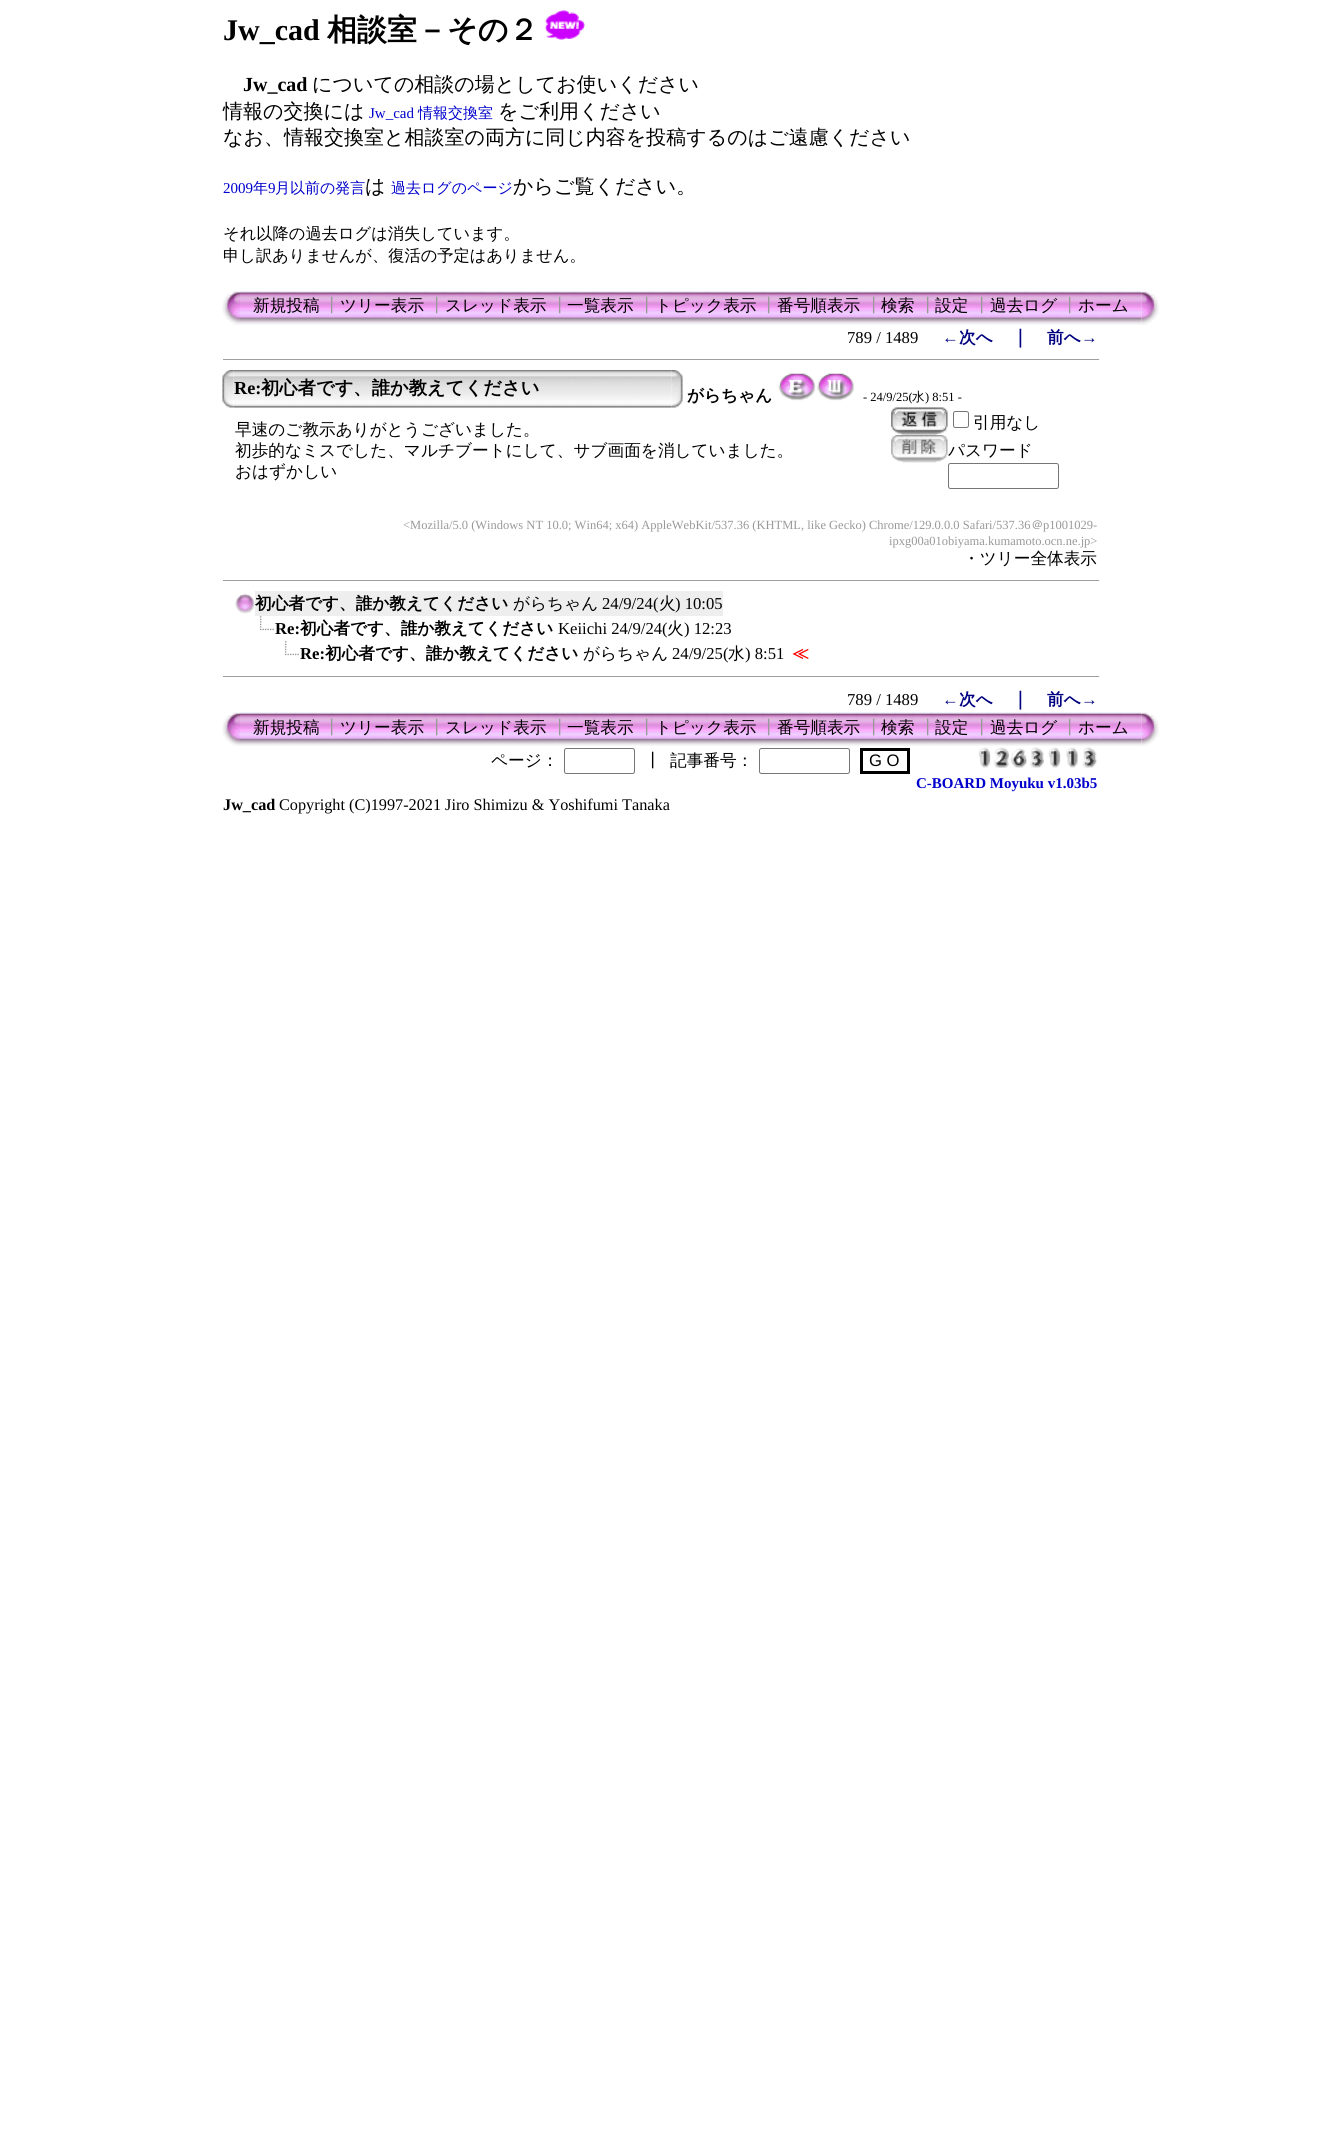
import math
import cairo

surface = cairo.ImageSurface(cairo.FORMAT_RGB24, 1320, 2150)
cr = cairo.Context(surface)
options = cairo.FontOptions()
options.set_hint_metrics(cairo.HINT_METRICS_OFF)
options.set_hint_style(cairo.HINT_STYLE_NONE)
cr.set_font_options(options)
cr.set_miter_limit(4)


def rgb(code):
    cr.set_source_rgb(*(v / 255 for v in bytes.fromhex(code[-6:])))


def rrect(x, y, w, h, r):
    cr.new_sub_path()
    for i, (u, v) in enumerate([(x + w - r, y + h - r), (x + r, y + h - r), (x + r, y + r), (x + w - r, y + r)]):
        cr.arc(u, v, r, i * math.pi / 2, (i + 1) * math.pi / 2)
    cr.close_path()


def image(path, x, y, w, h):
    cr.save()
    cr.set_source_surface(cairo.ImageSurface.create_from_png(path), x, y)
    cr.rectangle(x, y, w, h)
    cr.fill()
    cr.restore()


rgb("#ffffff")
cr.paint()
image("img/1.png", 545, 10, 40, 30)
image("img/2.png", 222, 291, 18, 34)
image("img/3.png", 240, 291, 902, 34)
image("img/4.png", 1141, 291, 18, 34)
rgb("#9f9f9f")
cr.rectangle(223, 359, 877, 1)
cr.fill()
rgb("#eeeeee")
cr.rectangle(1099, 359, 1, 1)
cr.fill()
image("img/6.png", 233, 370, 439, 38)
image("img/5.png", 222, 370, 12, 38)
image("img/7.png", 671, 370, 12, 38)
image("img/8.png", 778, 373, 38, 28)
image("img/9.png", 817, 373, 37, 28)
image("img/10.png", 891, 407, 57, 28)
rrect(953.5, 411.5, 15, 16, 2)
rgb("#767676")
cr.set_line_width(1)
cr.stroke()
image("img/11.png", 891, 435, 57, 28)
rrect(948.5, 463.5, 110, 25, 2)
cr.stroke()
rgb("#9f9f9f")
cr.rectangle(223, 580, 877, 1)
cr.fill()
rgb("#eeeeee")
cr.rectangle(1099, 580, 1, 1)
cr.fill()
image("img/12.png", 235, 593, 20, 21)
cr.rectangle(255, 591, 468, 25)
cr.fill()
image("img/13.png", 259, 616, 15, 15)
image("img/14.png", 284, 641, 15, 15)
rgb("#9f9f9f")
cr.rectangle(223, 676, 877, 1)
cr.fill()
rgb("#eeeeee")
cr.rectangle(1099, 676, 1, 1)
cr.fill()
image("img/15.png", 222, 712, 18, 34)
image("img/16.png", 240, 712, 902, 34)
image("img/17.png", 1141, 712, 18, 34)
rrect(564.5, 748.5, 70, 25, 2)
rgb("#767676")
cr.stroke()
rrect(759.5, 748.5, 90, 25, 2)
cr.stroke()
cr.rectangle(861.5, 749.5, 47, 23)
rgb("#000000")
cr.set_line_width(3)
cr.stroke()
image("img/18.png", 978, 747, 13, 21)
image("img/19.png", 993, 747, 16, 21)
image("img/20.png", 1010, 747, 18, 21)
image("img/21.png", 1030, 747, 14, 21)
image("img/18.png", 1048, 747, 13, 21)
image("img/22.png", 1066, 747, 12, 21)
image("img/23.png", 1082, 747, 15, 21)
cr.select_font_face("Liberation Serif", cairo.FONT_SLANT_NORMAL, cairo.FONT_WEIGHT_BOLD)
cr.set_font_size(30)
cr.move_to(223, 40)
cr.show_text("Jw_cad")
cr.select_font_face("WenQuanYi Zen Hei", cairo.FONT_SLANT_NORMAL, cairo.FONT_WEIGHT_BOLD)
cr.move_to(327, 40)
cr.show_text("相談室－その２")
cr.select_font_face("Liberation Serif", cairo.FONT_SLANT_NORMAL, cairo.FONT_WEIGHT_BOLD)
cr.set_font_size(20)
cr.move_to(243, 91)
cr.show_text("Jw_cad")
cr.select_font_face("WenQuanYi Zen Hei Medium")
cr.move_to(312, 91)
cr.show_text("についての相談の場としてお使いください")
cr.move_to(223, 118)
cr.show_text("情報の交換には")
cr.select_font_face("Liberation Serif")
cr.set_font_size(15)
rgb("#0000cc")
cr.move_to(369, 118)
cr.show_text("Jw_cad")
cr.select_font_face("WenQuanYi Zen Hei Medium")
cr.move_to(418, 118)
cr.show_text("情報交換室")
cr.set_font_size(20)
rgb("#000000")
cr.move_to(498, 118)
cr.show_text("をご利用ください")
cr.move_to(223, 144)
cr.show_text("なお、情報交換室と相談室の両方に同じ内容を投稿するのはご遠慮ください")
cr.select_font_face("Liberation Serif")
cr.set_font_size(15)
rgb("#0000cc")
cr.move_to(223, 193)
cr.show_text("2009")
cr.select_font_face("WenQuanYi Zen Hei Medium")
cr.move_to(253, 193)
cr.show_text("年")
cr.select_font_face("Liberation Serif")
cr.move_to(268, 193)
cr.show_text("9")
cr.select_font_face("WenQuanYi Zen Hei Medium")
cr.move_to(275, 193)
cr.show_text("月以前の発言")
cr.set_font_size(20)
rgb("#000000")
cr.move_to(365, 193)
cr.show_text("は")
cr.set_font_size(15)
rgb("#0000cc")
cr.move_to(391, 193)
cr.show_text("過去ログのページ")
cr.set_font_size(20)
rgb("#000000")
cr.move_to(513, 193)
cr.show_text("からご覧ください。")
cr.set_font_size(16.25)
cr.move_to(223, 239)
cr.show_text("それ以降の過去ログは消失しています。")
cr.move_to(223, 261)
cr.show_text("申し訳ありませんが、復活の予定はありません。")
cr.set_font_size(16.65)
cr.move_to(253, 311)
cr.show_text("新規投稿")
rgb("#999999")
cr.move_to(323, 311)
cr.show_text("┃")
rgb("#000000")
cr.move_to(340, 311)
cr.show_text("ツリー表示")
rgb("#999999")
cr.move_to(428, 311)
cr.show_text("┃")
rgb("#000000")
cr.move_to(445, 311)
cr.show_text("スレッド表示")
rgb("#999999")
cr.move_to(551, 311)
cr.show_text("┃")
rgb("#000000")
cr.move_to(567, 311)
cr.show_text("一覧表示")
rgb("#999999")
cr.move_to(638, 311)
cr.show_text("┃")
rgb("#000000")
cr.move_to(655, 311)
cr.show_text("トピック表示")
rgb("#999999")
cr.move_to(760, 311)
cr.show_text("┃")
rgb("#000000")
cr.move_to(777, 311)
cr.show_text("番号順表示")
rgb("#999999")
cr.move_to(865, 311)
cr.show_text("┃")
rgb("#000000")
cr.move_to(881, 311)
cr.show_text("検索")
rgb("#999999")
cr.move_to(919, 311)
cr.show_text("┃")
rgb("#000000")
cr.move_to(935, 311)
cr.show_text("設定")
rgb("#999999")
cr.move_to(973, 311)
cr.show_text("┃")
rgb("#000000")
cr.move_to(990, 311)
cr.show_text("過去ログ")
rgb("#999999")
cr.move_to(1061, 311)
cr.show_text("┃")
rgb("#000000")
cr.move_to(1078, 311)
cr.show_text("ホーム")
cr.select_font_face("Liberation Serif")
cr.move_to(847, 343)
cr.show_text("789 / 1489")
cr.select_font_face("Liberation Serif", cairo.FONT_SLANT_NORMAL, cairo.FONT_WEIGHT_BOLD)
rgb("#000080")
cr.move_to(942, 343)
cr.show_text("←")
cr.select_font_face("WenQuanYi Zen Hei", cairo.FONT_SLANT_NORMAL, cairo.FONT_WEIGHT_BOLD)
cr.move_to(959, 343)
cr.show_text("次へ")
cr.set_font_size(18.3)
cr.move_to(1011, 343)
cr.show_text("｜")
cr.set_font_size(16.65)
cr.move_to(1047, 343)
cr.show_text("前へ")
cr.select_font_face("Liberation Serif", cairo.FONT_SLANT_NORMAL, cairo.FONT_WEIGHT_BOLD)
cr.move_to(1081, 343)
cr.show_text("→")
cr.set_font_size(18.3)
rgb("#000000")
cr.move_to(234, 394)
cr.show_text("Re:")
cr.select_font_face("WenQuanYi Zen Hei", cairo.FONT_SLANT_NORMAL, cairo.FONT_WEIGHT_BOLD)
cr.move_to(261, 394)
cr.show_text("初心者です、誰か教えてください")
cr.set_font_size(16.65)
cr.move_to(687, 401)
cr.show_text("がらちゃん")
cr.select_font_face("Liberation Serif")
cr.set_font_size(12.5)
cr.move_to(863, 401)
cr.show_text("- 24/9/25(")
cr.select_font_face("WenQuanYi Zen Hei Medium")
cr.move_to(912, 401)
cr.show_text("水")
cr.select_font_face("Liberation Serif")
cr.move_to(925, 401)
cr.show_text(") 8:51 -")
cr.select_font_face("WenQuanYi Zen Hei Medium")
cr.set_font_size(16.65)
for x, y, s in [
    (235, 435, "早速のご教示ありがとうございました。"),
    (235, 456, "初歩的なミスでした、マルチブートにして、サブ画面を消していました。"),
    (235, 477, "おはずかしい"),
    (973, 428, "引用なし"),
    (948, 456, "パスワード"),
]:
    cr.move_to(x, y)
    cr.show_text(s)
cr.select_font_face("Liberation Serif")
cr.set_font_size(12.5)
rgb("#999999")
cr.move_to(403, 529)
cr.show_text("<Mozilla/5.0 (Windows NT 10.0; Win64; x64) AppleWebKit/537.36 (KHTML, like Gecko) Chrome/129.0.0.0 Safari/537.36")
cr.select_font_face("WenQuanYi Zen Hei Medium")
cr.move_to(1031, 529)
cr.show_text("＠")
cr.select_font_face("Liberation Serif")
cr.move_to(1043, 529)
cr.show_text("p1001029-")
cr.move_to(889, 545)
cr.show_text("ipxg00a01obiyama.kumamoto.ocn.ne.jp>")
cr.select_font_face("WenQuanYi Zen Hei Medium")
cr.set_font_size(16.65)
rgb("#000000")
cr.move_to(963, 564)
cr.show_text("・ツリー全体表示")
cr.select_font_face("WenQuanYi Zen Hei", cairo.FONT_SLANT_NORMAL, cairo.FONT_WEIGHT_BOLD)
cr.move_to(255, 609)
cr.show_text("初心者です、誰か教えてください")
cr.select_font_face("WenQuanYi Zen Hei Medium")
cr.move_to(513, 609)
cr.show_text("がらちゃん")
cr.select_font_face("Liberation Serif")
cr.move_to(602, 609)
cr.show_text("24/9/24(")
cr.select_font_face("WenQuanYi Zen Hei Medium")
cr.move_to(659, 609)
cr.show_text("火")
cr.select_font_face("Liberation Serif")
cr.move_to(675, 609)
cr.show_text(") 10:05")
cr.select_font_face("Liberation Serif", cairo.FONT_SLANT_NORMAL, cairo.FONT_WEIGHT_BOLD)
cr.move_to(275, 634)
cr.show_text("Re:")
cr.select_font_face("WenQuanYi Zen Hei", cairo.FONT_SLANT_NORMAL, cairo.FONT_WEIGHT_BOLD)
cr.move_to(300, 634)
cr.show_text("初心者です、誰か教えてください")
cr.select_font_face("Liberation Serif")
cr.move_to(558, 634)
cr.show_text("Keiichi 24/9/24(")
cr.select_font_face("WenQuanYi Zen Hei Medium")
cr.move_to(667, 634)
cr.show_text("火")
cr.select_font_face("Liberation Serif")
cr.move_to(684, 634)
cr.show_text(") 12:23")
cr.select_font_face("Liberation Serif", cairo.FONT_SLANT_NORMAL, cairo.FONT_WEIGHT_BOLD)
cr.move_to(300, 659)
cr.show_text("Re:")
cr.select_font_face("WenQuanYi Zen Hei", cairo.FONT_SLANT_NORMAL, cairo.FONT_WEIGHT_BOLD)
cr.move_to(325, 659)
cr.show_text("初心者です、誰か教えてください")
cr.select_font_face("WenQuanYi Zen Hei Medium")
cr.move_to(583, 659)
cr.show_text("がらちゃん")
cr.select_font_face("Liberation Serif")
cr.move_to(672, 659)
cr.show_text("24/9/25(")
cr.select_font_face("WenQuanYi Zen Hei Medium")
cr.move_to(728, 659)
cr.show_text("水")
cr.select_font_face("Liberation Serif")
cr.move_to(745, 659)
cr.show_text(") 8:51")
cr.select_font_face("WenQuanYi Zen Hei", cairo.FONT_SLANT_NORMAL, cairo.FONT_WEIGHT_BOLD)
rgb("#ff0000")
cr.move_to(792, 659)
cr.show_text("≪")
cr.select_font_face("Liberation Serif")
rgb("#000000")
cr.move_to(847, 705)
cr.show_text("789 / 1489")
cr.select_font_face("Liberation Serif", cairo.FONT_SLANT_NORMAL, cairo.FONT_WEIGHT_BOLD)
rgb("#000080")
cr.move_to(942, 705)
cr.show_text("←")
cr.select_font_face("WenQuanYi Zen Hei", cairo.FONT_SLANT_NORMAL, cairo.FONT_WEIGHT_BOLD)
cr.move_to(959, 705)
cr.show_text("次へ")
cr.set_font_size(18.3)
cr.move_to(1011, 705)
cr.show_text("｜")
cr.set_font_size(16.65)
cr.move_to(1047, 705)
cr.show_text("前へ")
cr.select_font_face("Liberation Serif", cairo.FONT_SLANT_NORMAL, cairo.FONT_WEIGHT_BOLD)
cr.move_to(1081, 705)
cr.show_text("→")
cr.select_font_face("WenQuanYi Zen Hei Medium")
rgb("#000000")
cr.move_to(253, 733)
cr.show_text("新規投稿")
rgb("#999999")
cr.move_to(323, 733)
cr.show_text("┃")
rgb("#000000")
cr.move_to(340, 733)
cr.show_text("ツリー表示")
rgb("#999999")
cr.move_to(428, 733)
cr.show_text("┃")
rgb("#000000")
cr.move_to(445, 733)
cr.show_text("スレッド表示")
rgb("#999999")
cr.move_to(551, 733)
cr.show_text("┃")
rgb("#000000")
cr.move_to(567, 733)
cr.show_text("一覧表示")
rgb("#999999")
cr.move_to(638, 733)
cr.show_text("┃")
rgb("#000000")
cr.move_to(655, 733)
cr.show_text("トピック表示")
rgb("#999999")
cr.move_to(760, 733)
cr.show_text("┃")
rgb("#000000")
cr.move_to(777, 733)
cr.show_text("番号順表示")
rgb("#999999")
cr.move_to(865, 733)
cr.show_text("┃")
rgb("#000000")
cr.move_to(881, 733)
cr.show_text("検索")
rgb("#999999")
cr.move_to(919, 733)
cr.show_text("┃")
rgb("#000000")
cr.move_to(935, 733)
cr.show_text("設定")
rgb("#999999")
cr.move_to(973, 733)
cr.show_text("┃")
rgb("#000000")
cr.move_to(990, 733)
cr.show_text("過去ログ")
rgb("#999999")
cr.move_to(1061, 733)
cr.show_text("┃")
rgb("#000000")
for x, y, s in [
    (1078, 733, "ホーム"),
    (491, 766, "ページ："),
    (644, 766, "┃"),
    (670, 766, "記事番号："),
]:
    cr.move_to(x, y)
    cr.show_text(s)
cr.select_font_face("Liberation Sans")
cr.move_to(869, 766)
cr.show_text("G O")
cr.select_font_face("Liberation Serif", cairo.FONT_SLANT_NORMAL, cairo.FONT_WEIGHT_BOLD)
cr.set_font_size(15)
rgb("#0000cc")
cr.move_to(916, 788)
cr.show_text("C-BOARD Moyuku v1.03b5")
cr.set_font_size(16.25)
rgb("#000000")
cr.move_to(223, 810)
cr.show_text("Jw_cad")
cr.select_font_face("Liberation Serif")
cr.move_to(279, 810)
cr.show_text("Copyright (C)1997-2021 Jiro Shimizu & Yoshifumi Tanaka")
surface.write_to_png("page.png")
